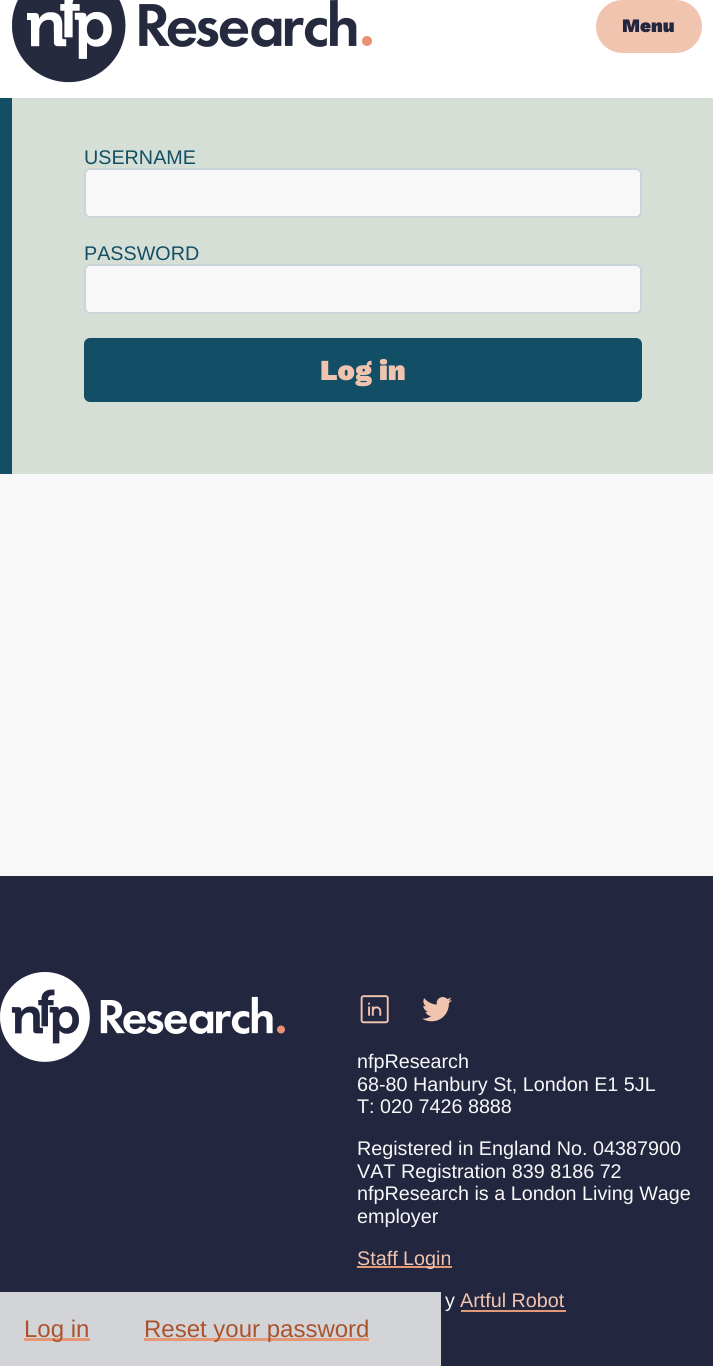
import math
import cairo

surface = cairo.ImageSurface(cairo.FORMAT_RGB24, 713, 1366)
cr = cairo.Context(surface)
options = cairo.FontOptions()
options.set_hint_metrics(cairo.HINT_METRICS_OFF)
options.set_hint_style(cairo.HINT_STYLE_NONE)
cr.set_font_options(options)
cr.set_miter_limit(4)


def rgb(code):
    cr.set_source_rgb(*(v / 255 for v in bytes.fromhex(code[-6:])))


def rrect(x, y, w, h, r):
    cr.new_sub_path()
    for i, (u, v) in enumerate([(x + w - r, y + h - r), (x + r, y + h - r), (x + r, y + r), (x + w - r, y + r)]):
        cr.arc(u, v, r, i * math.pi / 2, (i + 1) * math.pi / 2)
    cr.close_path()


def image(path, x, y, w, h):
    cr.save()
    cr.set_source_surface(cairo.ImageSurface.create_from_png(path), x, y)
    cr.rectangle(x, y, w, h)
    cr.fill()
    cr.restore()


rgb("#f8f8f8")
cr.paint()
rgb("#ffffff")
cr.rectangle(0, 0, 713, 98)
cr.fill()
image("img/1.png", 12, 0, 360, 83)
rgb("#f1c4b0")
rrect(597.5, 1.5, 103, 50, 25)
cr.fill_preserve()
cr.set_line_width(3)
cr.stroke()
rgb("#d5dfd6")
cr.rectangle(12, 98, 701, 376)
cr.fill()
rgb("#124f67")
cr.rectangle(0, 98, 12, 376)
cr.fill()
rgb("#f8f8f8")
rrect(84, 168, 558, 50, 6)
cr.fill()
rrect(85, 169, 556, 48, 5)
cr.set_source_rgba(0.071, 0.31, 0.404, 0.2)
cr.set_line_width(2)
cr.stroke()
rgb("#f8f8f8")
rrect(84, 264, 558, 50, 6)
cr.fill()
rrect(85, 265, 556, 48, 5)
cr.set_source_rgba(0.071, 0.31, 0.404, 0.2)
cr.stroke()
rgb("#124f67")
rrect(85.5, 339.5, 555, 61, 4.5)
cr.fill_preserve()
cr.set_line_width(3)
cr.stroke()
rgb("#22263e")
cr.rectangle(0, 876, 713, 490)
cr.fill()
cr.set_source_rgba(1, 1, 1, 0.8)
cr.rectangle(0, 1292, 441, 74)
cr.fill()
rgb("#e59875")
cr.rectangle(24, 1338, 66, 3)
cr.rectangle(144, 1338, 225, 3)
cr.fill()
image("img/2.png", 0, 972, 285, 90)
image("img/3.png", 360, 995, 29, 29)
image("img/4.png", 422, 997, 30, 25)
cr.rectangle(357, 1266, 95, 2)
cr.fill()
cr.rectangle(461, 1310, 105, 2)
cr.fill()
cr.select_font_face("Work Sans Black")
cr.set_font_size(19)
rgb("#22263e")
cr.move_to(622, 32)
cr.show_text("Menu")
cr.select_font_face("Liberation Sans")
cr.set_font_size(19.75)
rgb("#124f67")
cr.move_to(84, 164)
cr.show_text("USERNAME")
cr.move_to(84, 260)
cr.show_text("PASSWORD")
cr.select_font_face("Work Sans Black")
cr.set_font_size(29)
rgb("#f1c4b0")
cr.move_to(320, 380)
cr.show_text("Log in")
cr.select_font_face("Liberation Sans")
cr.set_font_size(24)
rgb("#aa532c")
cr.move_to(24, 1337)
cr.show_text("Log in")
cr.move_to(144, 1337)
cr.show_text("Reset your password")
cr.set_font_size(19.75)
rgb("#f8f8f8")
for x, y, s in [
    (357, 1068, "nfpResearch"),
    (357, 1091, "68-80 Hanbury St, London E1 5JL"),
    (357, 1113, "T: 020 7426 8888"),
    (357, 1155, "Registered in England No. 04387900"),
    (357, 1178, "VAT Registration 839 8186 72"),
    (357, 1200, "nfpResearch is a London Living Wage"),
    (357, 1223, "employer"),
]:
    cr.move_to(x, y)
    cr.show_text(s)
rgb("#f1c4b0")
cr.move_to(357, 1265)
cr.show_text("Staff Login")
rgb("#f8f8f8")
cr.move_to(445, 1307)
cr.show_text("y")
rgb("#f1c4b0")
cr.move_to(460, 1307)
cr.show_text("Artful Robot")
surface.write_to_png("page.png")
